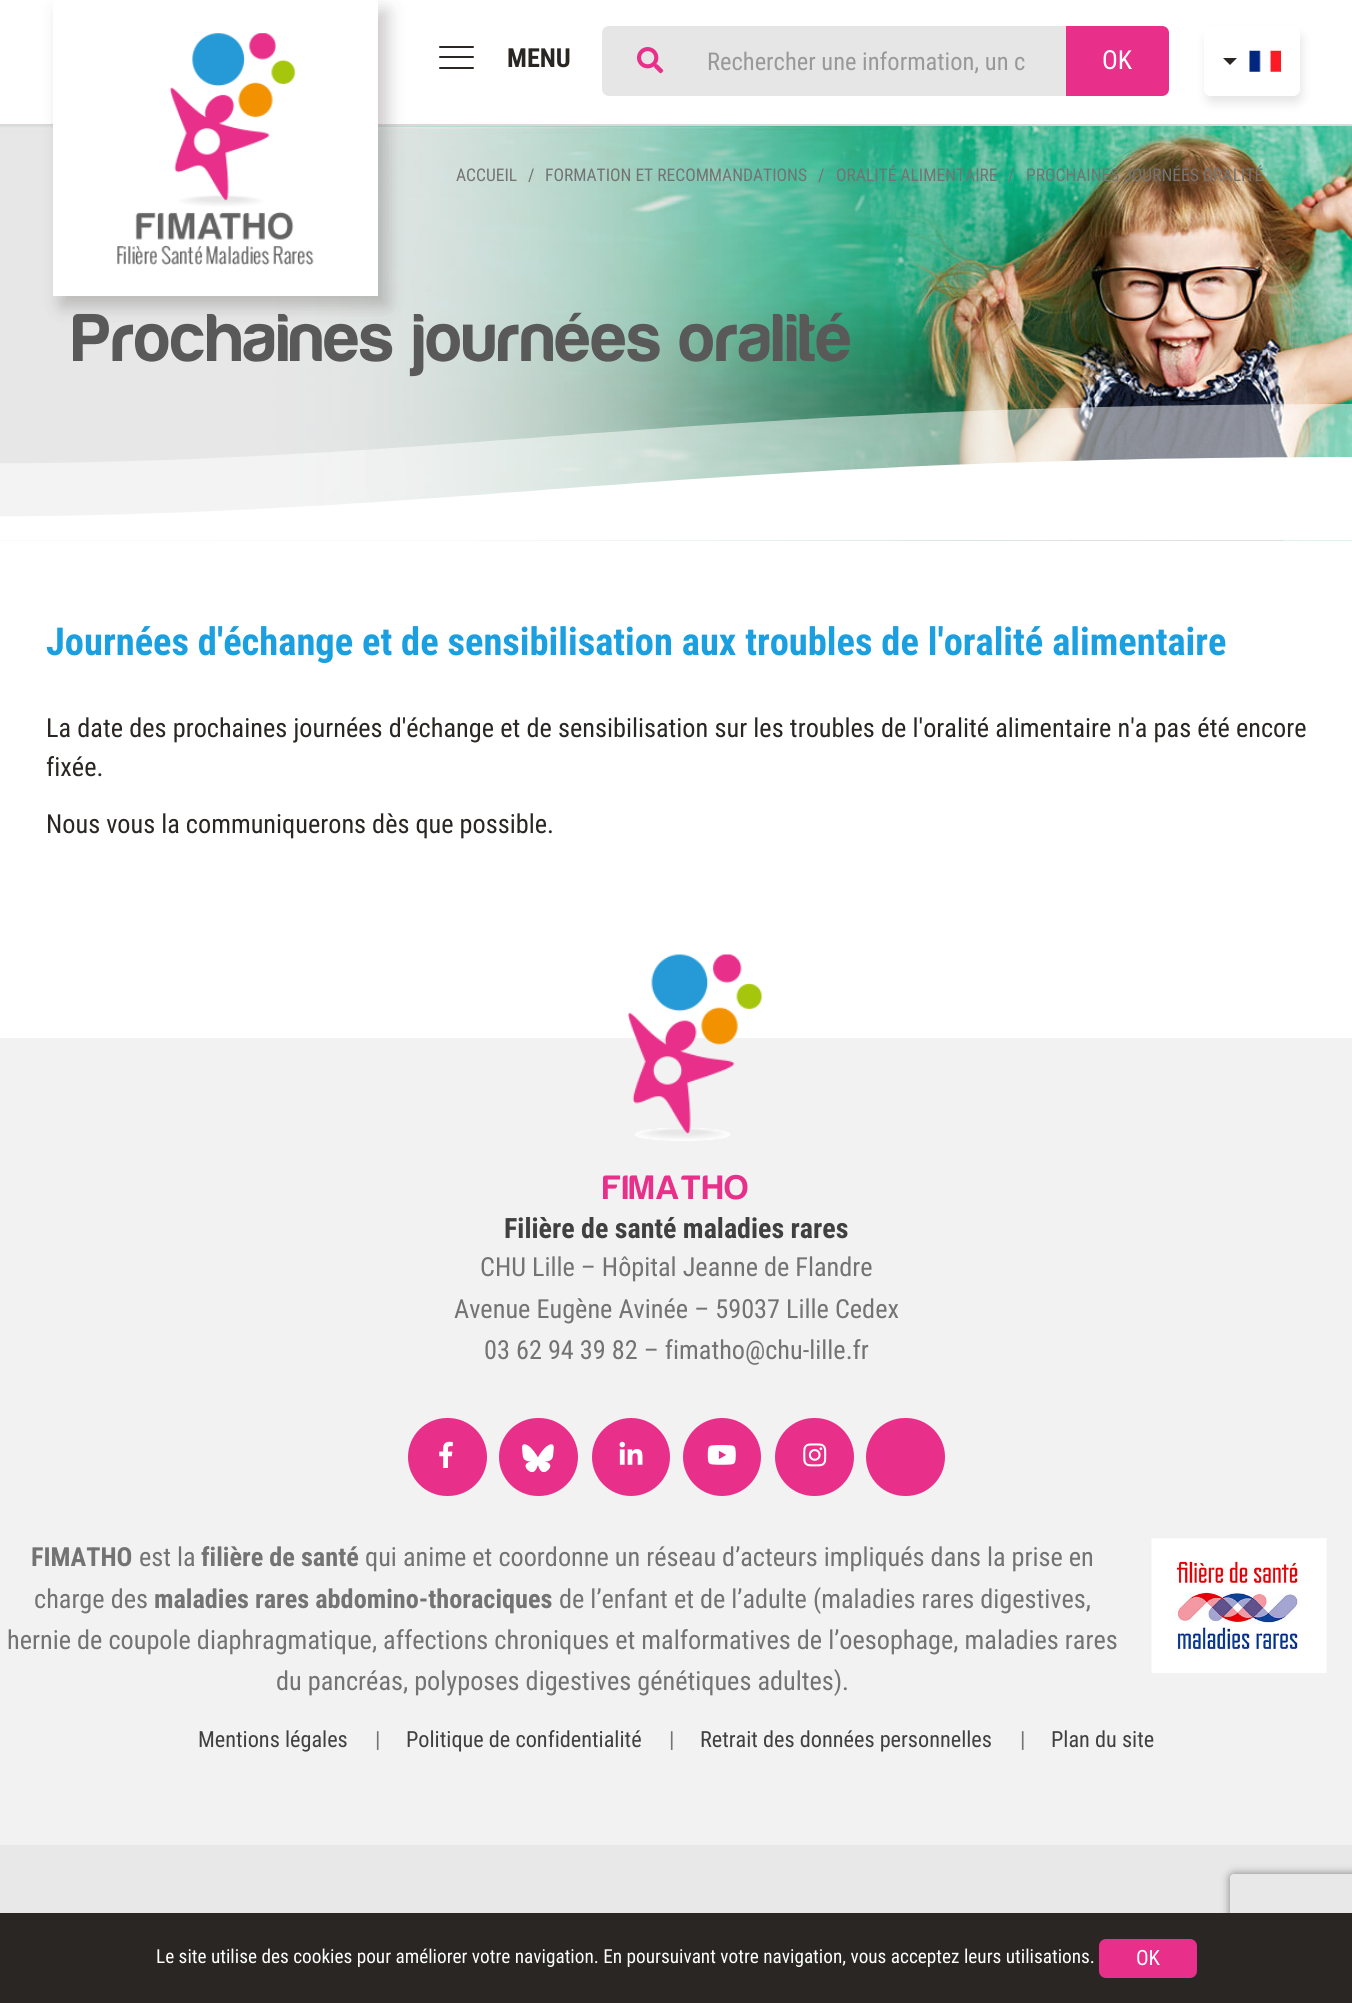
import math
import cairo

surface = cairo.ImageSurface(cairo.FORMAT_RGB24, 1352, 2003)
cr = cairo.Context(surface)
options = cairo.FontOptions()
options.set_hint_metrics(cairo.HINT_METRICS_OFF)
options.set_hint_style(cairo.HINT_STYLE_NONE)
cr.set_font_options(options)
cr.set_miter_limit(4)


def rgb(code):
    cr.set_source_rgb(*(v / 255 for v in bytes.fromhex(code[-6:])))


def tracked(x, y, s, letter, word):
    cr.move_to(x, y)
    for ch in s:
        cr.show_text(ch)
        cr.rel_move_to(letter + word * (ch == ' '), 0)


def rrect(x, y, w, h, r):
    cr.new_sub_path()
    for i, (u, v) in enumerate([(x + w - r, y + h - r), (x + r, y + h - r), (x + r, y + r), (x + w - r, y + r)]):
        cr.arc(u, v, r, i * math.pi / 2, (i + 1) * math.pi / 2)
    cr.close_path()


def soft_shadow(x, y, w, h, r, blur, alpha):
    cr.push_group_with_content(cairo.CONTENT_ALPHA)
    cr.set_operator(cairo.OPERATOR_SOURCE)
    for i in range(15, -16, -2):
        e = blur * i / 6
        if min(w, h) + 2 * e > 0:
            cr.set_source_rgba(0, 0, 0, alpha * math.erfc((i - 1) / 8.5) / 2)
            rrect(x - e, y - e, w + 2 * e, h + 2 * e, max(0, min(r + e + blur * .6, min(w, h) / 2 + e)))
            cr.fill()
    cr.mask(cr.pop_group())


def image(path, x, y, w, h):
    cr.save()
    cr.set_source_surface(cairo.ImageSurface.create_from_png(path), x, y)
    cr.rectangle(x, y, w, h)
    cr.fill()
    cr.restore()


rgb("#ffffff")
cr.paint()
rgb("#d9d9d9")
cr.rectangle(0, 124, 1352, 2)
cr.fill()
image("img/4.png", 0, 126, 1352, 415)
rgb("#2a2623")
soft_shadow(61, 11, 326, 295, 0, 9, 0.25)
rgb("#ffffff")
cr.rectangle(53, 0, 325, 296)
cr.fill()
image("img/1.png", 117, 33, 197, 232)
rgb("#2a2623")
rrect(439, 46, 35, 2, 1)
cr.fill()
rrect(439, 56, 35, 2, 1)
cr.fill()
rrect(439, 67, 35, 2, 1)
cr.fill()
rgb("#e6e6e6")
cr.new_path()
cr.move_to(609, 26)
cr.line_to(698, 26)
cr.line_to(698, 96)
cr.line_to(609, 96)
cr.curve_to(605, 96, 602, 93, 602, 89)
cr.line_to(602, 33)
cr.curve_to(602, 29, 605, 26, 609, 26)
cr.close_path()
cr.fill()
image("img/2.png", 637, 47, 27, 27)
cr.rectangle(698, 26, 368, 70)
cr.fill()
rgb("#e82f89")
cr.new_path()
cr.move_to(1067, 27)
cr.line_to(1162, 27)
cr.curve_to(1165.5, 27, 1168, 29.5, 1168, 33)
cr.line_to(1168, 89)
cr.curve_to(1168, 92.5, 1165.5, 95, 1162, 95)
cr.line_to(1067, 95)
cr.close_path()
cr.fill_preserve()
cr.stroke()
cr.save()
cr.set_fill_rule(cairo.FILL_RULE_EVEN_ODD)
cr.new_path()
cr.move_to(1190, 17)
cr.line_to(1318, 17)
cr.line_to(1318, 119)
cr.line_to(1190, 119)
cr.close_path()
cr.move_to(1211, 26)
cr.line_to(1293, 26)
cr.curve_to(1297, 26, 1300, 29, 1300, 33)
cr.line_to(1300, 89)
cr.curve_to(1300, 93, 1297, 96, 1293, 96)
cr.line_to(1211, 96)
cr.curve_to(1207, 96, 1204, 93, 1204, 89)
cr.line_to(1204, 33)
cr.curve_to(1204, 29, 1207, 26, 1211, 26)
cr.close_path()
cr.clip()
rgb("#000000")
soft_shadow(1206, 33, 96, 70, 7, 5, 0.1)
cr.restore()
rgb("#2a2623")
cr.new_path()
cr.move_to(1223, 58)
cr.line_to(1237, 58)
cr.line_to(1230, 65)
cr.close_path()
cr.fill()
image("img/3.png", 1249, 50, 32, 22)
image("img/5.png", 0, 404, 1352, 137)
image("img/6.png", 0, 457, 1352, 84)
rgb("#e8e8e8")
cr.rectangle(0, 1845, 1352, 68)
cr.fill()
rgb("#f2f2f2")
cr.rectangle(0, 1038, 1352, 807)
cr.fill()
image("img/7.png", 627, 954, 136, 187)
rgb("#e82f89")
rrect(408, 1418, 79, 78, 39)
cr.fill()
image("img/8.png", 439, 1441, 14, 27)
rrect(499, 1418, 79, 78, 39)
cr.fill()
image("img/9.png", 522, 1444, 32, 28)
cr.arc(631, 1457, 39, 0, 2 * math.pi)
cr.fill()
image("img/10.png", 619, 1441, 24, 24)
cr.arc(722, 1457, 39, 0, 2 * math.pi)
cr.fill()
image("img/11.png", 707, 1445, 29, 20)
rrect(775, 1418, 79, 78, 39)
cr.fill()
image("img/12.png", 803, 1443, 24, 24)
rrect(866, 1418, 79, 78, 39)
cr.fill()
image("img/13.png", 1151, 1538, 176, 135)
cr.save()
cr.set_fill_rule(cairo.FILL_RULE_EVEN_ODD)
cr.new_path()
cr.move_to(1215, 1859)
cr.line_to(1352, 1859)
cr.line_to(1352, 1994)
cr.line_to(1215, 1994)
cr.close_path()
cr.move_to(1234, 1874)
cr.line_to(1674, 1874)
cr.curve_to(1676, 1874, 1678, 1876, 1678, 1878)
cr.line_to(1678, 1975)
cr.curve_to(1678, 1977, 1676, 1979, 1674, 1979)
cr.line_to(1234, 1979)
cr.curve_to(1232, 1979, 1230, 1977, 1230, 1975)
cr.line_to(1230, 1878)
cr.curve_to(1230, 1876, 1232, 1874, 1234, 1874)
cr.close_path()
cr.clip()
rgb("#808080")
soft_shadow(1230, 1874, 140, 105, 4, 4.5, 1)
cr.restore()
rgb("#2a2623")
cr.rectangle(0, 1913, 1352, 90)
cr.fill()
rgb("#e82f89")
rrect(1100, 1940, 96, 37, 6)
cr.fill_preserve()
cr.stroke()
cr.select_font_face("Roboto Condensed", cairo.FONT_SLANT_NORMAL, cairo.FONT_WEIGHT_BOLD)
cr.set_font_size(26.25)
rgb("#2a2623")
cr.move_to(507, 67)
cr.show_text("MENU")
cr.select_font_face("Roboto Condensed")
cr.set_font_size(24.5)
rgb("#999999")
cr.move_to(707, 70)
cr.show_text("Rechercher une information, un c")
cr.set_font_size(26.25)
rgb("#ffffff")
cr.move_to(1102, 69)
cr.show_text("OK")
cr.set_font_size(17.5)
rgb("#737373")
for x, y, s in [
    (456, 181, "ACCUEIL"),
    (528, 181, "/"),
    (545, 181, "FORMATION ET RECOMMANDATIONS"),
    (818, 181, "/"),
    (836, 181, "ORALITÉ ALIMENTAIRE"),
    (1008, 181, "/"),
    (1026, 181, "PROCHAINES JOURNÉES ORALITÉ"),
]:
    cr.move_to(x, y)
    cr.show_text(s)
cr.select_font_face("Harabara", cairo.FONT_SLANT_NORMAL, cairo.FONT_WEIGHT_BOLD)
cr.set_font_size(70)
rgb("#595959")
tracked(73, 361, "Prochaines journées oralité", 1.75, 0)
cr.select_font_face("Roboto Condensed", cairo.FONT_SLANT_NORMAL, cairo.FONT_WEIGHT_BOLD)
cr.set_font_size(38.5)
rgb("#1a9fe0")
cr.move_to(46, 655)
cr.show_text("Journées d'échange et de sensibilisation aux troubles de l'oralité alimentaire")
cr.select_font_face("Roboto Condensed")
cr.set_font_size(26.25)
rgb("#2a2623")
tracked(46, 737, "La date des prochaines journées d'échange et de sensibilisation sur les troubles de l'oralité alimentaire n'a pas été encore", 0, 0.2)
cr.move_to(46, 776)
cr.show_text("fixée.")
cr.move_to(46, 833)
cr.show_text("Nous vous la communiquerons dès que possible.")
cr.select_font_face("Harabara", cairo.FONT_SLANT_NORMAL, cairo.FONT_WEIGHT_BOLD)
cr.set_font_size(35)
rgb("#e82f89")
tracked(603, 1199, "FIMATHO", 1.75, 0)
cr.select_font_face("Roboto Condensed", cairo.FONT_SLANT_NORMAL, cairo.FONT_WEIGHT_BOLD)
cr.set_font_size(28)
rgb("#404040")
cr.move_to(504, 1238)
cr.show_text("Filière de santé maladies rares")
cr.select_font_face("Roboto Condensed")
cr.set_font_size(26.25)
rgb("#737373")
for x, y, s in [
    (480, 1276, "CHU Lille – Hôpital Jeanne de Flandre"),
    (454, 1318, "Avenue Eugène Avinée – 59037 Lille Cedex"),
    (484, 1359, "03 62 94 39 82 – fimatho@chu-lille.fr"),
]:
    cr.move_to(x, y)
    cr.show_text(s)
cr.select_font_face("Roboto Condensed", cairo.FONT_SLANT_NORMAL, cairo.FONT_WEIGHT_BOLD)
cr.move_to(31, 1566)
cr.show_text("FIMATHO")
cr.select_font_face("Roboto Condensed")
cr.move_to(139, 1566)
cr.show_text("est la")
cr.select_font_face("Roboto Condensed", cairo.FONT_SLANT_NORMAL, cairo.FONT_WEIGHT_BOLD)
cr.move_to(201, 1566)
cr.show_text("filière de santé")
cr.select_font_face("Roboto Condensed")
cr.move_to(365, 1566)
cr.show_text("qui anime et coordonne un réseau d’acteurs impliqués dans la prise en")
cr.move_to(34, 1608)
cr.show_text("charge des")
cr.select_font_face("Roboto Condensed", cairo.FONT_SLANT_NORMAL, cairo.FONT_WEIGHT_BOLD)
cr.move_to(154, 1608)
cr.show_text("maladies rares abdomino-thoraciques")
cr.select_font_face("Roboto Condensed")
for x, y, s in [
    (559, 1608, "de l’enfant et de l’adulte (maladies rares digestives,"),
    (7, 1649, "hernie de coupole diaphragmatique, affections chroniques et malformatives de l’oesophage, maladies rares"),
    (276, 1690, "du pancréas, polyposes digestives génétiques adultes)."),
]:
    cr.move_to(x, y)
    cr.show_text(s)
cr.set_font_size(22.25)
rgb("#404040")
cr.move_to(198, 1747)
cr.show_text("Mentions légales")
rgb("#737373")
cr.move_to(375, 1747)
cr.show_text("|")
rgb("#404040")
cr.move_to(406, 1747)
cr.show_text("Politique de confidentialité")
rgb("#737373")
cr.move_to(669, 1747)
cr.show_text("|")
rgb("#404040")
cr.move_to(700, 1747)
cr.show_text("Retrait des données personnelles")
rgb("#737373")
cr.move_to(1020, 1747)
cr.show_text("|")
rgb("#404040")
cr.move_to(1051, 1747)
cr.show_text("Plan du site")
cr.set_font_size(19.25)
rgb("#ffffff")
cr.move_to(156, 1963)
cr.show_text("Le site utilise des cookies pour améliorer votre navigation. En poursuivant votre navigation, vous acceptez leurs utilisations.")
cr.set_font_size(21)
cr.move_to(1136, 1965)
cr.show_text("OK")
surface.write_to_png("page.png")
